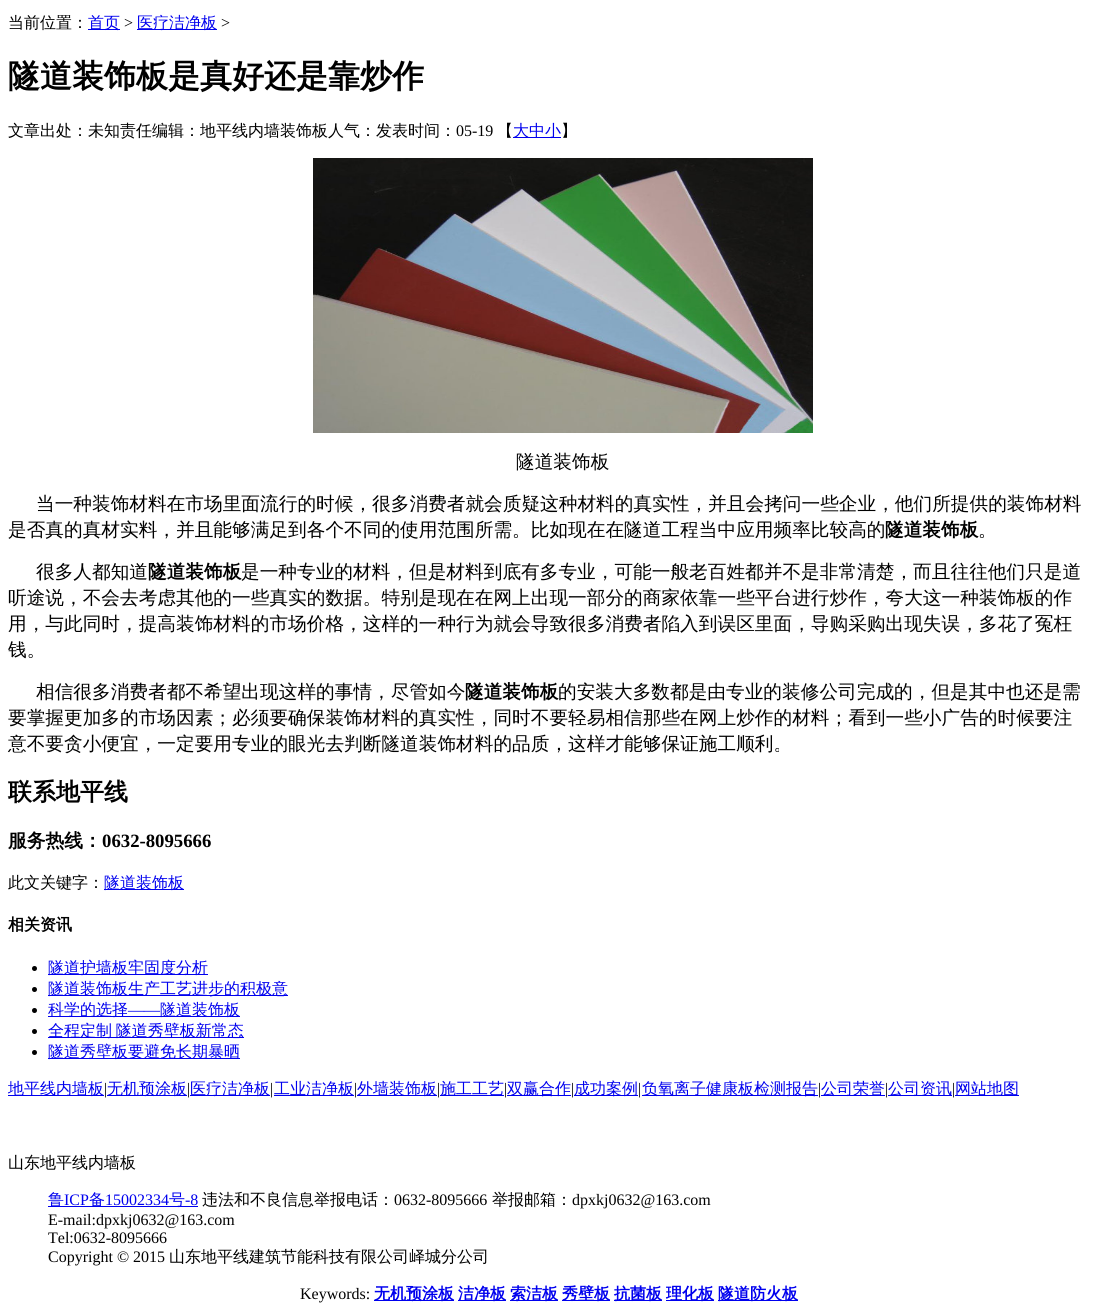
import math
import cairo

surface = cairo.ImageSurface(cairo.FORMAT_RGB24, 1098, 1313)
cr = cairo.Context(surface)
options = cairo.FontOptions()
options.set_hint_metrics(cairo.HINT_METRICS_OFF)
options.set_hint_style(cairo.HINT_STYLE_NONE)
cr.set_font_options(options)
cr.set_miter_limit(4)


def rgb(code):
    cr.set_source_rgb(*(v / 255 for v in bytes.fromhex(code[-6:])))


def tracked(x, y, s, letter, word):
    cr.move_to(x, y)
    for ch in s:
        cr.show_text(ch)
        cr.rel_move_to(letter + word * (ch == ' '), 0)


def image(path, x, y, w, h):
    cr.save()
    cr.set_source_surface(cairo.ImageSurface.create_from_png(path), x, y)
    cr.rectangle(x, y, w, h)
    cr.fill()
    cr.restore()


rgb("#ffffff")
cr.paint()
for x, y, w, h, color in [
    (88, 29, 32, 1, "#0000ee"),
    (137, 29, 80, 1, "#0000ee"),
    (513, 137, 48, 1, "#0000ee"),
]:
    rgb(color)
    cr.rectangle(x, y, w, h)
    cr.fill()
image("img/1.png", 313, 158, 500, 275)
cr.rectangle(104, 889, 80, 1)
cr.fill()
rgb("#000000")
cr.arc(34.5, 968.5, 2.5, 0, 2 * math.pi)
cr.fill()
rgb("#0000ee")
cr.rectangle(48, 974, 160, 1)
cr.fill()
rgb("#000000")
cr.arc(34.5, 989.5, 2.5, 0, 2 * math.pi)
cr.fill()
rgb("#0000ee")
cr.rectangle(48, 995, 240, 1)
cr.fill()
rgb("#000000")
cr.arc(34.5, 1010.5, 2.5, 0, 2 * math.pi)
cr.fill()
rgb("#0000ee")
cr.rectangle(48, 1016, 192, 1)
cr.fill()
rgb("#000000")
cr.arc(34.5, 1031.5, 2.5, 0, 2 * math.pi)
cr.fill()
rgb("#0000ee")
cr.rectangle(48, 1037, 196, 1)
cr.fill()
rgb("#000000")
cr.arc(34.5, 1052.5, 2.5, 0, 2 * math.pi)
cr.fill()
for x, y, w, h, color in [
    (48, 1058, 192, 1, "#0000ee"),
    (8, 1095, 96, 1, "#0000ee"),
    (107, 1095, 80, 1, "#0000ee"),
    (190, 1095, 80, 1, "#0000ee"),
    (274, 1095, 80, 1, "#0000ee"),
    (357, 1095, 80, 1, "#0000ee"),
    (440, 1095, 64, 1, "#0000ee"),
    (507, 1095, 64, 1, "#0000ee"),
    (574, 1095, 64, 1, "#0000ee"),
    (642, 1095, 176, 1, "#0000ee"),
    (821, 1095, 64, 1, "#0000ee"),
    (888, 1095, 64, 1, "#0000ee"),
    (955, 1095, 64, 1, "#0000ee"),
    (48, 1206, 150, 1, "#0000ee"),
    (374, 1300, 80, 1, "#0000ee"),
    (458, 1300, 48, 1, "#0000ee"),
    (510, 1300, 48, 1, "#0000ee"),
    (562, 1300, 48, 1, "#0000ee"),
    (614, 1300, 48, 1, "#0000ee"),
    (666, 1300, 48, 1, "#0000ee"),
    (718, 1300, 80, 1, "#0000ee"),
]:
    rgb(color)
    cr.rectangle(x, y, w, h)
    cr.fill()
cr.select_font_face("WenQuanYi Zen Hei Medium")
cr.set_font_size(16)
rgb("#000000")
cr.move_to(8, 28)
cr.show_text("当前位置：")
rgb("#0000ee")
cr.move_to(88, 28)
cr.show_text("首页")
cr.select_font_face("Liberation Serif")
rgb("#000000")
cr.move_to(124, 28)
cr.show_text(">")
cr.select_font_face("WenQuanYi Zen Hei Medium")
rgb("#0000ee")
cr.move_to(137, 28)
cr.show_text("医疗洁净板")
cr.select_font_face("Liberation Serif")
rgb("#000000")
cr.move_to(221, 28)
cr.show_text(">")
cr.select_font_face("WenQuanYi Zen Hei", cairo.FONT_SLANT_NORMAL, cairo.FONT_WEIGHT_BOLD)
cr.set_font_size(32)
cr.move_to(8, 87)
cr.show_text("隧道装饰板是真好还是靠炒作")
cr.select_font_face("WenQuanYi Zen Hei Medium")
cr.set_font_size(16)
cr.move_to(8, 136)
cr.show_text("文章出处：未知责任编辑：地平线内墙装饰板人气：发表时间：")
cr.select_font_face("Liberation Serif")
cr.move_to(456, 136)
cr.show_text("05-19")
cr.select_font_face("WenQuanYi Zen Hei Medium")
cr.move_to(497, 136)
cr.show_text("【")
rgb("#0000ee")
cr.move_to(513, 136)
cr.show_text("大中小")
rgb("#000000")
cr.move_to(561, 136)
cr.show_text("】")
cr.set_font_size(18.67)
for x, y, s in [
    (516, 468, "隧道装饰板"),
    (36, 510, "当一种装饰材料在市场里面流行的时候，很多消费者就会质疑这种材料的真实性，并且会拷问一些企业，他们所提供的装饰材料"),
    (8, 536, "是否真的真材实料，并且能够满足到各个不同的使用范围所需。比如现在在隧道工程当中应用频率比较高的"),
]:
    cr.move_to(x, y)
    cr.show_text(s)
cr.select_font_face("WenQuanYi Zen Hei", cairo.FONT_SLANT_NORMAL, cairo.FONT_WEIGHT_BOLD)
cr.move_to(885, 536)
cr.show_text("隧道装饰板")
cr.select_font_face("WenQuanYi Zen Hei Medium")
cr.move_to(978, 536)
cr.show_text("。")
cr.move_to(36, 578)
cr.show_text("很多人都知道")
cr.select_font_face("WenQuanYi Zen Hei", cairo.FONT_SLANT_NORMAL, cairo.FONT_WEIGHT_BOLD)
cr.move_to(148, 578)
cr.show_text("隧道装饰板")
cr.select_font_face("WenQuanYi Zen Hei Medium")
for x, y, s in [
    (241, 578, "是一种专业的材料，但是材料到底有多专业，可能一般老百姓都并不是非常清楚，而且往往他们只是道"),
    (8, 604, "听途说，不会去考虑其他的一些真实的数据。特别是现在在网上出现一部分的商家依靠一些平台进行炒作，夸大这一种装饰板的作"),
    (8, 630, "用，与此同时，提高装饰材料的市场价格，这样的一种行为就会导致很多消费者陷入到误区里面，导购采购出现失误，多花了冤枉"),
    (8, 656, "钱。"),
    (36, 698, "相信很多消费者都不希望出现这样的事情，尽管如今"),
]:
    cr.move_to(x, y)
    cr.show_text(s)
cr.select_font_face("WenQuanYi Zen Hei", cairo.FONT_SLANT_NORMAL, cairo.FONT_WEIGHT_BOLD)
cr.move_to(465, 698)
cr.show_text("隧道装饰板")
cr.select_font_face("WenQuanYi Zen Hei Medium")
for x, y, s in [
    (558, 698, "的安装大多数都是由专业的装修公司完成的，但是其中也还是需"),
    (8, 724, "要掌握更加多的市场因素；必须要确保装饰材料的真实性，同时不要轻易相信那些在网上炒作的材料；看到一些小广告的时候要注"),
    (8, 750, "意不要贪小便宜，一定要用专业的眼光去判断隧道装饰材料的品质，这样才能够保证施工顺利。"),
]:
    cr.move_to(x, y)
    cr.show_text(s)
cr.select_font_face("WenQuanYi Zen Hei", cairo.FONT_SLANT_NORMAL, cairo.FONT_WEIGHT_BOLD)
cr.set_font_size(24)
cr.move_to(8, 800)
cr.show_text("联系地平线")
cr.set_font_size(18.75)
cr.move_to(8, 847)
cr.show_text("服务热线：")
cr.select_font_face("Liberation Serif", cairo.FONT_SLANT_NORMAL, cairo.FONT_WEIGHT_BOLD)
cr.move_to(102, 847)
cr.show_text("0632-8095666")
cr.select_font_face("WenQuanYi Zen Hei Medium")
cr.set_font_size(16)
cr.move_to(8, 888)
cr.show_text("此文关键字：")
rgb("#0000ee")
cr.move_to(104, 888)
cr.show_text("隧道装饰板")
cr.select_font_face("WenQuanYi Zen Hei", cairo.FONT_SLANT_NORMAL, cairo.FONT_WEIGHT_BOLD)
rgb("#000000")
cr.move_to(8, 930)
cr.show_text("相关资讯")
cr.select_font_face("WenQuanYi Zen Hei Medium")
rgb("#0000ee")
for x, y, s in [
    (48, 973, "隧道护墙板牢固度分析"),
    (48, 994, "隧道装饰板生产工艺进步的积极意"),
    (48, 1015, "科学的选择"),
]:
    cr.move_to(x, y)
    cr.show_text(s)
cr.select_font_face("Liberation Serif")
cr.move_to(128, 1015)
cr.show_text("——")
cr.select_font_face("WenQuanYi Zen Hei Medium")
cr.move_to(160, 1015)
cr.show_text("隧道装饰板")
tracked(48, 1036, "全程定制 隧道秀壁板新常态", 0, -1)
cr.move_to(48, 1057)
cr.show_text("隧道秀壁板要避免长期暴晒")
cr.move_to(8, 1094)
cr.show_text("地平线内墙板")
cr.select_font_face("Liberation Serif")
rgb("#000000")
cr.move_to(104, 1094)
cr.show_text("|")
cr.select_font_face("WenQuanYi Zen Hei Medium")
rgb("#0000ee")
cr.move_to(107, 1094)
cr.show_text("无机预涂板")
cr.select_font_face("Liberation Serif")
rgb("#000000")
cr.move_to(187, 1094)
cr.show_text("|")
cr.select_font_face("WenQuanYi Zen Hei Medium")
rgb("#0000ee")
cr.move_to(190, 1094)
cr.show_text("医疗洁净板")
cr.select_font_face("Liberation Serif")
rgb("#000000")
cr.move_to(270, 1094)
cr.show_text("|")
cr.select_font_face("WenQuanYi Zen Hei Medium")
rgb("#0000ee")
cr.move_to(274, 1094)
cr.show_text("工业洁净板")
cr.select_font_face("Liberation Serif")
rgb("#000000")
cr.move_to(354, 1094)
cr.show_text("|")
cr.select_font_face("WenQuanYi Zen Hei Medium")
rgb("#0000ee")
cr.move_to(357, 1094)
cr.show_text("外墙装饰板")
cr.select_font_face("Liberation Serif")
rgb("#000000")
cr.move_to(437, 1094)
cr.show_text("|")
cr.select_font_face("WenQuanYi Zen Hei Medium")
rgb("#0000ee")
cr.move_to(440, 1094)
cr.show_text("施工工艺")
cr.select_font_face("Liberation Serif")
rgb("#000000")
cr.move_to(504, 1094)
cr.show_text("|")
cr.select_font_face("WenQuanYi Zen Hei Medium")
rgb("#0000ee")
cr.move_to(507, 1094)
cr.show_text("双赢合作")
cr.select_font_face("Liberation Serif")
rgb("#000000")
cr.move_to(571, 1094)
cr.show_text("|")
cr.select_font_face("WenQuanYi Zen Hei Medium")
rgb("#0000ee")
cr.move_to(574, 1094)
cr.show_text("成功案例")
cr.select_font_face("Liberation Serif")
rgb("#000000")
cr.move_to(638, 1094)
cr.show_text("|")
cr.select_font_face("WenQuanYi Zen Hei Medium")
rgb("#0000ee")
cr.move_to(642, 1094)
cr.show_text("负氧离子健康板检测报告")
cr.select_font_face("Liberation Serif")
rgb("#000000")
cr.move_to(818, 1094)
cr.show_text("|")
cr.select_font_face("WenQuanYi Zen Hei Medium")
rgb("#0000ee")
cr.move_to(821, 1094)
cr.show_text("公司荣誉")
cr.select_font_face("Liberation Serif")
rgb("#000000")
cr.move_to(885, 1094)
cr.show_text("|")
cr.select_font_face("WenQuanYi Zen Hei Medium")
rgb("#0000ee")
cr.move_to(888, 1094)
cr.show_text("公司资讯")
cr.select_font_face("Liberation Serif")
rgb("#000000")
cr.move_to(952, 1094)
cr.show_text("|")
cr.select_font_face("WenQuanYi Zen Hei Medium")
rgb("#0000ee")
cr.move_to(955, 1094)
cr.show_text("网站地图")
rgb("#000000")
cr.move_to(8, 1168)
cr.show_text("山东地平线内墙板")
rgb("#0000ee")
cr.move_to(48, 1205)
cr.show_text("鲁")
cr.select_font_face("Liberation Serif")
cr.move_to(64, 1205)
cr.show_text("ICP")
cr.select_font_face("WenQuanYi Zen Hei Medium")
cr.move_to(89, 1205)
cr.show_text("备")
cr.select_font_face("Liberation Serif")
cr.move_to(105, 1205)
cr.show_text("15002334")
cr.select_font_face("WenQuanYi Zen Hei Medium")
cr.move_to(169, 1205)
cr.show_text("号")
cr.select_font_face("Liberation Serif")
cr.move_to(185, 1205)
cr.show_text("-8")
cr.select_font_face("WenQuanYi Zen Hei Medium")
rgb("#000000")
cr.move_to(202, 1205)
cr.show_text("违法和不良信息举报电话：")
cr.select_font_face("Liberation Serif")
cr.move_to(394, 1205)
cr.show_text("0632-8095666")
cr.select_font_face("WenQuanYi Zen Hei Medium")
cr.move_to(492, 1205)
cr.show_text("举报邮箱：")
cr.select_font_face("Liberation Serif")
for x, y, s in [
    (572, 1205, "dpxkj0632@163.com"),
    (48, 1225, "E-mail:dpxkj0632@163.com"),
    (48, 1243, "Tel:0632-8095666"),
    (48, 1262, "Copyright © 2015"),
]:
    cr.move_to(x, y)
    cr.show_text(s)
cr.select_font_face("WenQuanYi Zen Hei Medium")
cr.move_to(169, 1262)
cr.show_text("山东地平线建筑节能科技有限公司峄城分公司")
cr.select_font_face("Liberation Serif")
cr.move_to(300, 1299)
cr.show_text("Keywords:")
cr.select_font_face("WenQuanYi Zen Hei", cairo.FONT_SLANT_NORMAL, cairo.FONT_WEIGHT_BOLD)
rgb("#0000ee")
for x, y, s in [
    (374, 1299, "无机预涂板"),
    (458, 1299, "洁净板"),
    (510, 1299, "索洁板"),
    (562, 1299, "秀壁板"),
    (614, 1299, "抗菌板"),
    (666, 1299, "理化板"),
    (718, 1299, "隧道防火板"),
]:
    cr.move_to(x, y)
    cr.show_text(s)
surface.write_to_png("page.png")
